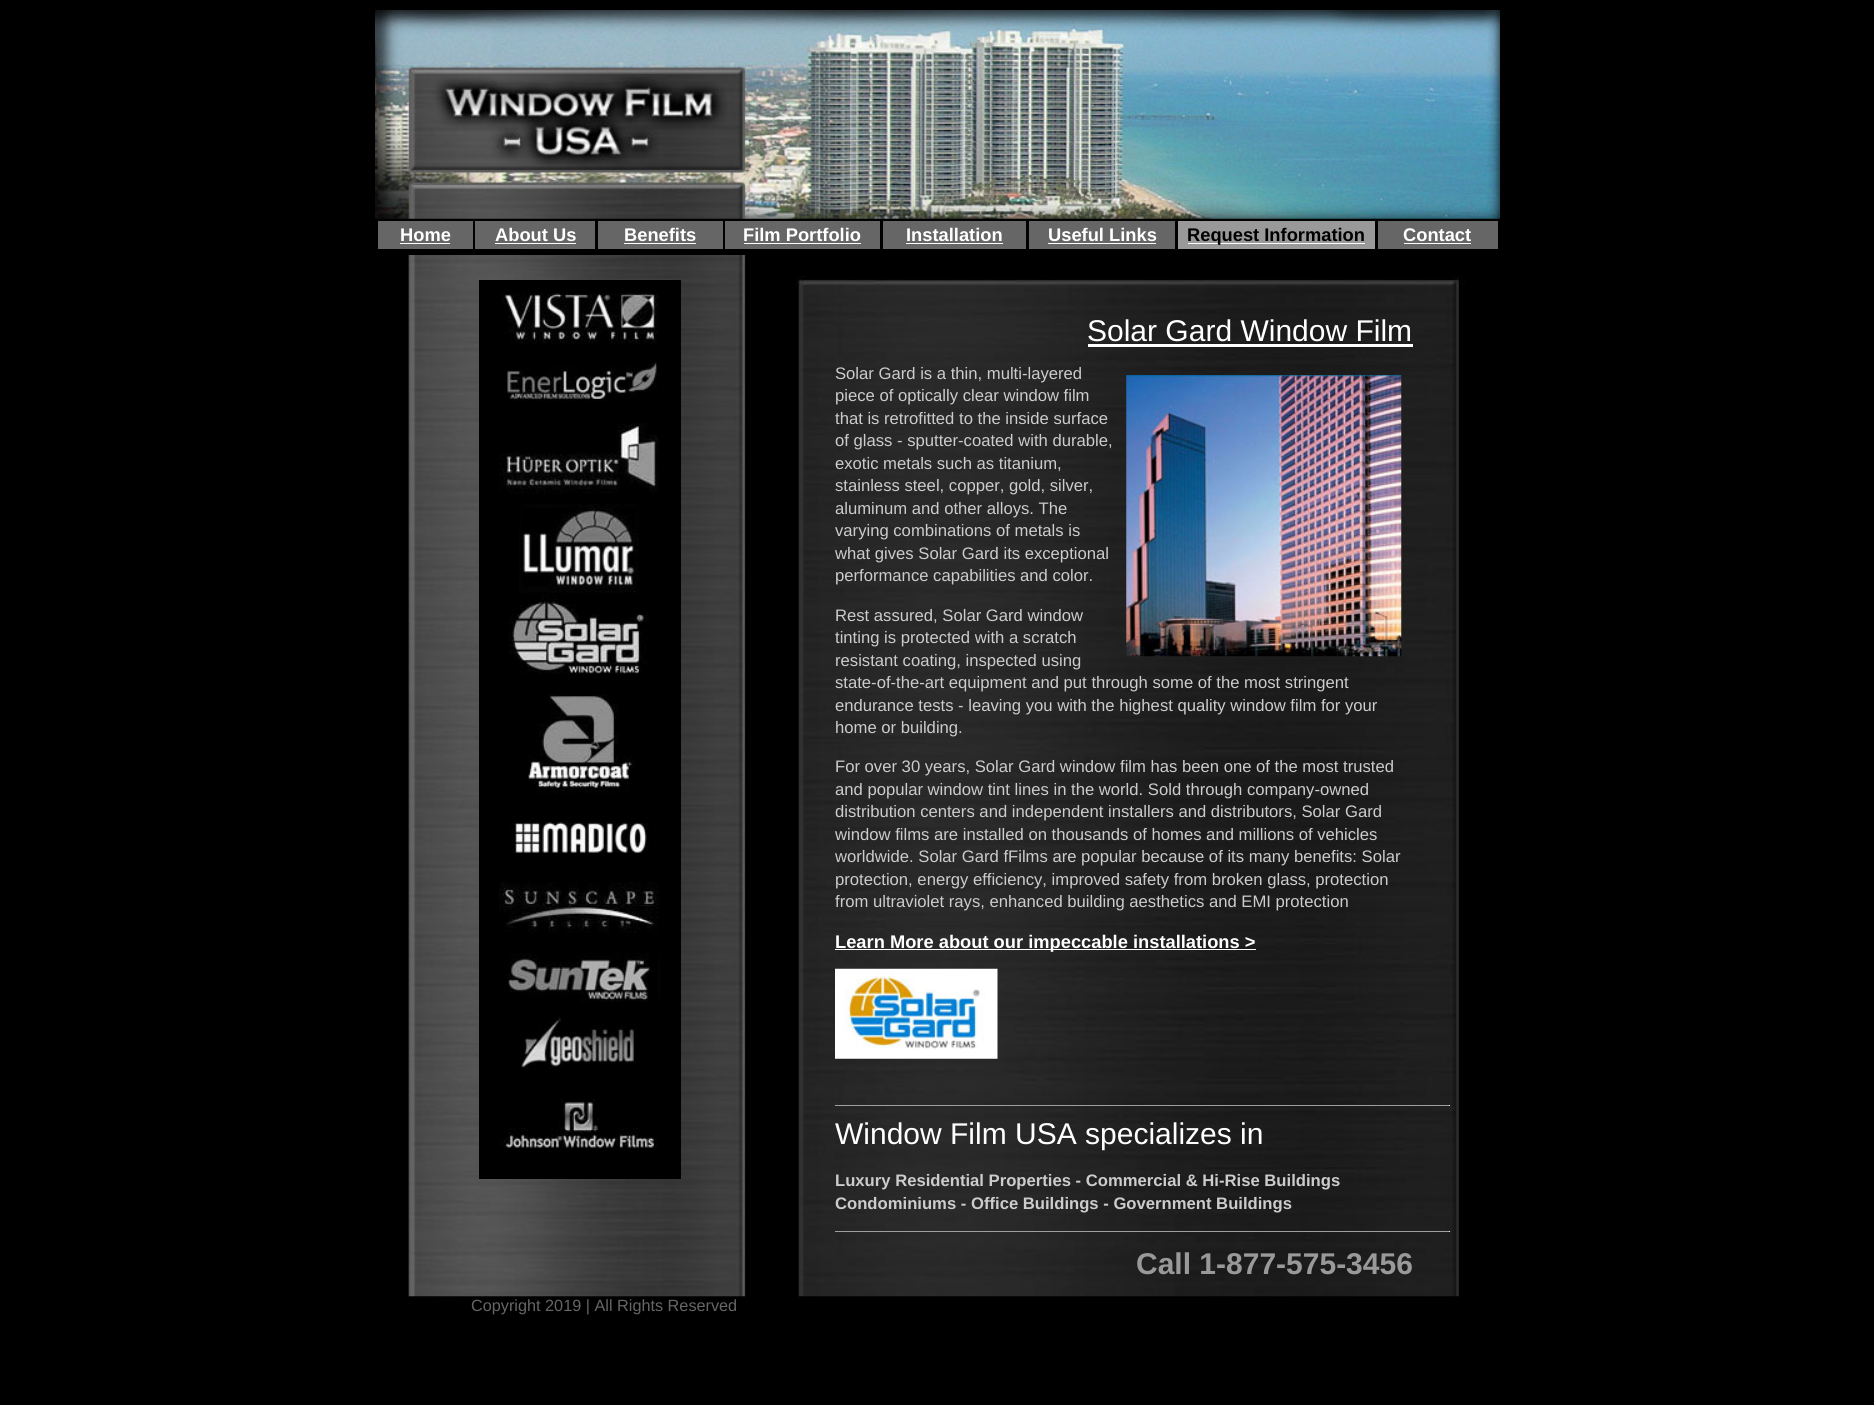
import math
import cairo

surface = cairo.ImageSurface(cairo.FORMAT_RGB24, 1874, 1405)
cr = cairo.Context(surface)
options = cairo.FontOptions()
options.set_hint_metrics(cairo.HINT_METRICS_OFF)
options.set_hint_style(cairo.HINT_STYLE_NONE)
cr.set_font_options(options)
cr.set_miter_limit(4)


def rgb(code):
    cr.set_source_rgb(*(v / 255 for v in bytes.fromhex(code[-6:])))


def image(path, x, y, w, h):
    cr.save()
    cr.set_source_surface(cairo.ImageSurface.create_from_png(path), x, y)
    cr.rectangle(x, y, w, h)
    cr.fill()
    cr.restore()


rgb("#000000")
cr.paint()
image("img/1.png", 375, 10, 1125, 209)
for x, y, w, h, color in [
    (378, 221, 95, 28, "#666666"),
    (400, 243, 50, 1, "#ffffff"),
    (475, 221, 120, 28, "#666666"),
    (495, 243, 81, 1, "#ffffff"),
    (598, 221, 125, 28, "#666666"),
    (624, 243, 72, 1, "#ffffff"),
    (725, 221, 155, 28, "#666666"),
    (744, 243, 117, 1, "#ffffff"),
    (883, 221, 143, 28, "#666666"),
    (906, 243, 97, 1, "#ffffff"),
    (1029, 221, 146, 28, "#666666"),
    (1048, 243, 108, 1, "#ffffff"),
    (1178, 221, 197, 28, "#999999"),
    (1188, 243, 177, 1, "#ffffff"),
    (1378, 221, 120, 28, "#666666"),
    (1404, 243, 67, 1, "#ffffff"),
]:
    rgb(color)
    cr.rectangle(x, y, w, h)
    cr.fill()
image("img/2.png", 408, 255, 338, 1042)
rgb("#000000")
cr.rectangle(479, 280, 202, 899)
cr.fill()
image("img/3.png", 501, 293, 158, 51)
image("img/4.png", 507, 362, 150, 40)
image("img/5.png", 499, 423, 160, 71)
image("img/6.png", 519, 504, 120, 89)
image("img/7.png", 509, 594, 140, 80)
image("img/8.png", 528, 694, 108, 100)
image("img/9.png", 509, 822, 140, 32)
image("img/10.png", 499, 882, 160, 51)
image("img/11.png", 508, 953, 152, 49)
image("img/12.png", 519, 1017, 117, 53)
image("img/13.png", 500, 1098, 158, 50)
image("img/14.png", 795, 276, 670, 1021)
rgb("#ffffff")
cr.rectangle(1088, 344, 325, 3)
cr.fill()
image("img/15.png", 1126, 375, 276, 282)
cr.rectangle(835, 949, 421, 1)
cr.fill()
image("img/16.png", 835, 968, 163, 91)
for x, y, w, h, color in [
    (835, 1105, 615, 1, "#9f9f9f"),
    (1449, 1105, 1, 1, "#eeeeee"),
    (835, 1231, 615, 1, "#9f9f9f"),
    (1449, 1231, 1, 1, "#eeeeee"),
]:
    rgb(color)
    cr.rectangle(x, y, w, h)
    cr.fill()
cr.select_font_face("Liberation Sans", cairo.FONT_SLANT_NORMAL, cairo.FONT_WEIGHT_BOLD)
cr.set_font_size(18.3)
rgb("#ffffff")
for x, y, s in [
    (400, 241, "Home"),
    (495, 241, "About Us"),
    (624, 241, "Benefits"),
    (743, 241, "Film Portfolio"),
    (906, 241, "Installation"),
    (1048, 241, "Useful Links"),
]:
    cr.move_to(x, y)
    cr.show_text(s)
rgb("#000000")
cr.move_to(1187, 241)
cr.show_text("Request Information")
rgb("#ffffff")
cr.move_to(1403, 241)
cr.show_text("Contact")
cr.select_font_face("Liberation Sans")
cr.set_font_size(30)
cr.move_to(1087, 341)
cr.show_text("Solar Gard Window Film")
cr.set_font_size(16.65)
rgb("#cccccc")
for x, y, s in [
    (835, 379, "Solar Gard is a thin, multi-layered"),
    (835, 401, "piece of optically clear window film"),
    (835, 424, "that is retrofitted to the inside surface"),
    (835, 446, "of glass - sputter-coated with durable,"),
    (835, 469, "exotic metals such as titanium,"),
    (835, 491, "stainless steel, copper, gold, silver,"),
    (835, 514, "aluminum and other alloys. The"),
    (835, 536, "varying combinations of metals is"),
    (835, 559, "what gives Solar Gard its exceptional"),
    (835, 581, "performance capabilities and color."),
    (835, 621, "Rest assured, Solar Gard window"),
    (835, 643, "tinting is protected with a scratch"),
    (835, 666, "resistant coating, inspected using"),
    (835, 688, "state-of-the-art equipment and put through some of the most stringent"),
    (835, 711, "endurance tests - leaving you with the highest quality window film for your"),
    (835, 733, "home or building."),
    (835, 772, "For over 30 years, Solar Gard window film has been one of the most trusted"),
    (835, 795, "and popular window tint lines in the world. Sold through company-owned"),
    (835, 817, "distribution centers and independent installers and distributors, Solar Gard"),
    (835, 840, "window films are installed on thousands of homes and millions of vehicles"),
    (835, 862, "worldwide. Solar Gard fFilms are popular because of its many benefits: Solar"),
    (835, 885, "protection, energy efficiency, improved safety from broken glass, protection"),
    (835, 907, "from ultraviolet rays, enhanced building aesthetics and EMI protection"),
]:
    cr.move_to(x, y)
    cr.show_text(s)
cr.select_font_face("Liberation Sans", cairo.FONT_SLANT_NORMAL, cairo.FONT_WEIGHT_BOLD)
cr.set_font_size(18.3)
rgb("#ffffff")
cr.move_to(835, 948)
cr.show_text("Learn More about our impeccable installations >")
cr.select_font_face("Liberation Sans")
cr.set_font_size(30)
cr.move_to(835, 1144)
cr.show_text("Window Film USA specializes in")
cr.select_font_face("Liberation Sans", cairo.FONT_SLANT_NORMAL, cairo.FONT_WEIGHT_BOLD)
cr.set_font_size(16.65)
rgb("#cccccc")
cr.move_to(835, 1186)
cr.show_text("Luxury Residential Properties - Commercial & Hi-Rise Buildings")
cr.move_to(835, 1209)
cr.show_text("Condominiums - Office Buildings - Government Buildings")
cr.set_font_size(30)
rgb("#999999")
cr.move_to(1136, 1274)
cr.show_text("Call 1-877-575-3456")
cr.select_font_face("Liberation Sans")
cr.set_font_size(16.25)
rgb("#666666")
cr.move_to(471, 1311)
cr.show_text("Copyright 2019 | All Rights Reserved")
surface.write_to_png("page.png")
